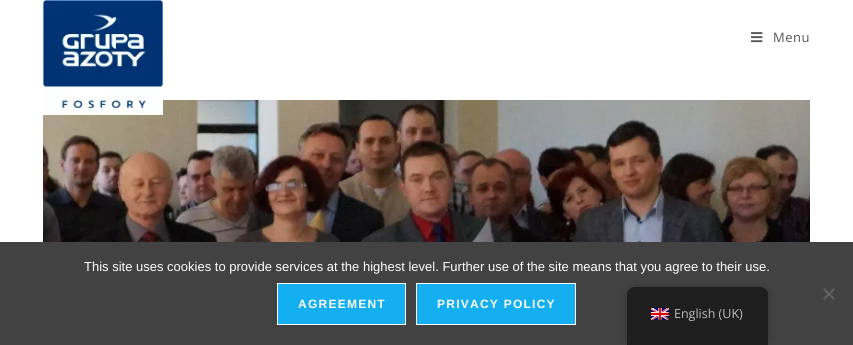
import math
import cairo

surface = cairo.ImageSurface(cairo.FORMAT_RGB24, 853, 345)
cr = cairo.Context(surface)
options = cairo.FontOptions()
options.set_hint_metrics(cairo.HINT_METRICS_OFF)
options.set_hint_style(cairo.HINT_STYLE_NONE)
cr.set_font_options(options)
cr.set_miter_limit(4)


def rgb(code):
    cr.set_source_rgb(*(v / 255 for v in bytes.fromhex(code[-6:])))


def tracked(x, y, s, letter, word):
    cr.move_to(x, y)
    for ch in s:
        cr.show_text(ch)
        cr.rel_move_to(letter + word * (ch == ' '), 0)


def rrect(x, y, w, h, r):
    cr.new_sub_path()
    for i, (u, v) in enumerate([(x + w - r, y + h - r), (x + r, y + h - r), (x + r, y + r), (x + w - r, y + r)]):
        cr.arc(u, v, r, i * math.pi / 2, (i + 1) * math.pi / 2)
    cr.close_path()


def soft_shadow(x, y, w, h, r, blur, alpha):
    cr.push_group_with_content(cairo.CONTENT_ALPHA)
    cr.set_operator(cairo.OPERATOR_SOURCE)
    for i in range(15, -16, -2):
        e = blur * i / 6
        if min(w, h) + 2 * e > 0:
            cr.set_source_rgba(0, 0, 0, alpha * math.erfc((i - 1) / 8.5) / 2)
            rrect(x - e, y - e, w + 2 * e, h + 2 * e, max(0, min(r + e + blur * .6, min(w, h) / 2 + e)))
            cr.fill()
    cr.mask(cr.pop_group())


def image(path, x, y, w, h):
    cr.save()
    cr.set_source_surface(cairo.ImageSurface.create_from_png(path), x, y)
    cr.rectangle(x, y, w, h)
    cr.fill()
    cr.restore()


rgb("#ffffff")
cr.paint()
image("img/3.png", 43, 100, 767, 142)
image("img/1.png", 43, 0, 120, 115)
image("img/2.png", 751, 32, 12, 11)
rgb("#424242")
cr.rectangle(0, 242, 853, 103)
cr.fill()
rgb("#616161")
cr.new_path()
cr.move_to(833.5, 288)
cr.line_to(835, 289.5)
cr.line_to(824.5, 300)
cr.line_to(823, 298.5)
cr.close_path()
cr.fill()
cr.new_path()
cr.move_to(823, 289.5)
cr.line_to(824.5, 288)
cr.line_to(835, 298.5)
cr.line_to(833.5, 300)
cr.close_path()
cr.fill()
rgb("#13aff0")
cr.rectangle(277.5, 283.5, 128, 41)
cr.fill_preserve()
rgb("#ffffff")
cr.set_line_width(1)
cr.stroke()
rgb("#13aff0")
cr.rectangle(416.5, 283.5, 159, 41)
cr.fill_preserve()
rgb("#ffffff")
cr.stroke()
rgb("#000000")
soft_shadow(627, 287, 141, 58, 8, 4, 0.25)
rgb("#1e1e1e")
cr.new_path()
cr.move_to(635, 287)
cr.line_to(760, 287)
cr.curve_to(764.5, 287, 768, 290.5, 768, 295)
cr.line_to(768, 345)
cr.line_to(627, 345)
cr.line_to(627, 295)
cr.curve_to(627, 290.5, 630.5, 287, 635, 287)
cr.close_path()
cr.fill()
image("img/4.png", 651, 308, 18, 12)
cr.select_font_face("Open Sans")
cr.set_font_size(13)
rgb("#555555")
tracked(773, 42, "Menu", 0.5, 0)
cr.select_font_face("Liberation Sans")
rgb("#ffffff")
cr.move_to(84, 271)
cr.show_text("This site uses cookies to provide services at the highest level. Further use of the site means that you agree to their use.")
cr.select_font_face("Liberation Sans", cairo.FONT_SLANT_NORMAL, cairo.FONT_WEIGHT_BOLD)
cr.set_font_size(12)
tracked(298, 308, "AGREEMENT", 1.25, 0)
tracked(437, 308, "PRIVACY POLICY", 1.25, 0)
cr.select_font_face("Open Sans")
cr.set_font_size(12.5)
rgb("#bdbdbd")
cr.move_to(674, 318)
cr.show_text("English (UK)")
surface.write_to_png("page.png")
